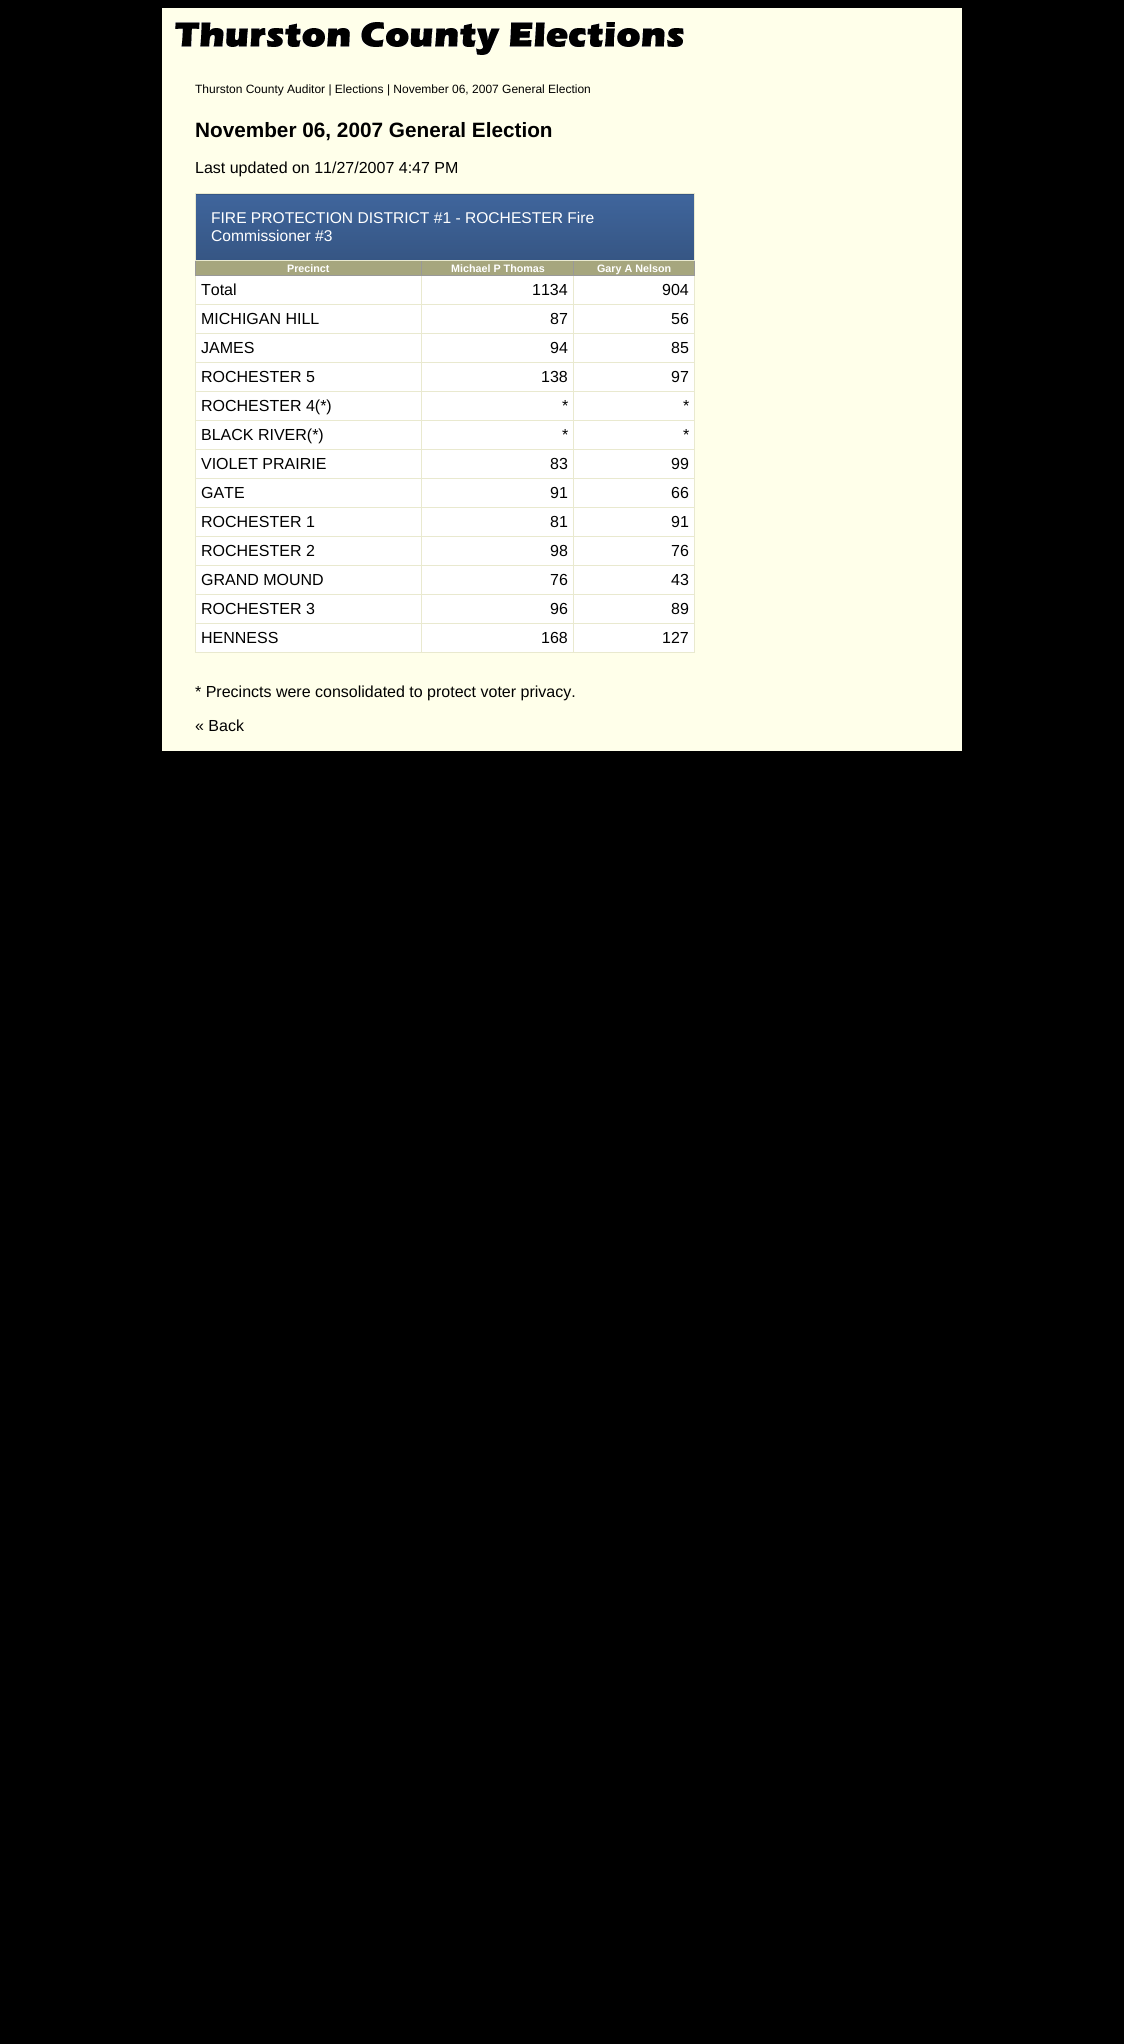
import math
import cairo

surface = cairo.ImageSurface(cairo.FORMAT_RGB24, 1124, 2044)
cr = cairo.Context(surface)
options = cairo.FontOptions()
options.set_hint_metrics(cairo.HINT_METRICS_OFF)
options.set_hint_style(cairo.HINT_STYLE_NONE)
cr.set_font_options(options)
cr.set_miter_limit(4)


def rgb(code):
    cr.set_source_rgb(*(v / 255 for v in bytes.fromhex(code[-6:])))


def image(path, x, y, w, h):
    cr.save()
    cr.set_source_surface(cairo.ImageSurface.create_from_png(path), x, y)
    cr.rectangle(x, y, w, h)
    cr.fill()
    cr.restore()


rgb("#000000")
cr.paint()
rgb("#ffffea")
cr.rectangle(162, 8, 800, 743)
cr.fill()
image("img/1.png", 175, 22, 509, 33)
rgb("#365684")
cr.rectangle(196, 194, 498, 1)
cr.fill()
gradient = cairo.LinearGradient(197, 195, 197, 260)
gradient.add_color_stop_rgba(0, 0.247, 0.396, 0.612, 1)
gradient.add_color_stop_rgba(1, 0.212, 0.337, 0.518, 1)
cr.set_source(gradient)
cr.rectangle(196, 195, 498, 65)
cr.fill()
for x, y, w, h, color in [
    (195, 193, 500, 1, "#e9e9cf"),
    (573, 304, 122, 1, "#e9e9cf"),
    (573, 333, 122, 1, "#e9e9cf"),
    (573, 362, 122, 1, "#e9e9cf"),
    (573, 391, 122, 1, "#e9e9cf"),
    (573, 420, 122, 1, "#e9e9cf"),
    (573, 449, 122, 1, "#e9e9cf"),
    (573, 478, 122, 1, "#e9e9cf"),
    (573, 507, 122, 1, "#e9e9cf"),
    (573, 536, 122, 1, "#e9e9cf"),
    (573, 565, 122, 1, "#e9e9cf"),
    (573, 594, 122, 1, "#e9e9cf"),
    (573, 623, 122, 1, "#e9e9cf"),
    (694, 623, 1, 30, "#e9e9cf"),
    (694, 594, 1, 30, "#e9e9cf"),
    (694, 565, 1, 30, "#e9e9cf"),
    (694, 536, 1, 30, "#e9e9cf"),
    (694, 507, 1, 30, "#e9e9cf"),
    (694, 478, 1, 30, "#e9e9cf"),
    (694, 449, 1, 30, "#e9e9cf"),
    (694, 420, 1, 30, "#e9e9cf"),
    (694, 391, 1, 30, "#e9e9cf"),
    (694, 362, 1, 30, "#e9e9cf"),
    (694, 333, 1, 30, "#e9e9cf"),
    (694, 275, 1, 59, "#e9e9cf"),
    (694, 260, 1, 16, "#999999"),
    (694, 193, 1, 68, "#e9e9cf"),
    (573, 652, 122, 1, "#e9e9cf"),
    (573, 623, 1, 30, "#e9e9cf"),
    (421, 623, 153, 1, "#e9e9cf"),
    (573, 594, 1, 30, "#e9e9cf"),
    (421, 594, 153, 1, "#e9e9cf"),
    (573, 565, 1, 30, "#e9e9cf"),
    (421, 565, 153, 1, "#e9e9cf"),
    (573, 536, 1, 30, "#e9e9cf"),
    (421, 536, 153, 1, "#e9e9cf"),
    (573, 507, 1, 30, "#e9e9cf"),
    (421, 507, 153, 1, "#e9e9cf"),
    (573, 478, 1, 30, "#e9e9cf"),
    (421, 478, 153, 1, "#e9e9cf"),
    (573, 449, 1, 30, "#e9e9cf"),
    (421, 449, 153, 1, "#e9e9cf"),
    (573, 420, 1, 30, "#e9e9cf"),
    (421, 420, 153, 1, "#e9e9cf"),
    (573, 391, 1, 30, "#e9e9cf"),
    (421, 391, 153, 1, "#e9e9cf"),
    (573, 362, 1, 30, "#e9e9cf"),
    (421, 362, 153, 1, "#e9e9cf"),
    (573, 333, 1, 30, "#e9e9cf"),
    (421, 333, 153, 1, "#e9e9cf"),
    (573, 304, 1, 30, "#e9e9cf"),
    (421, 304, 153, 1, "#e9e9cf"),
    (573, 275, 1, 30, "#e9e9cf"),
    (573, 275, 122, 1, "#999999"),
    (573, 260, 1, 16, "#999999"),
    (421, 652, 153, 1, "#e9e9cf"),
    (421, 623, 1, 30, "#e9e9cf"),
    (195, 623, 227, 1, "#e9e9cf"),
    (421, 594, 1, 30, "#e9e9cf"),
    (195, 594, 227, 1, "#e9e9cf"),
    (421, 565, 1, 30, "#e9e9cf"),
    (195, 565, 227, 1, "#e9e9cf"),
    (421, 536, 1, 30, "#e9e9cf"),
    (195, 536, 227, 1, "#e9e9cf"),
    (421, 507, 1, 30, "#e9e9cf"),
    (195, 507, 227, 1, "#e9e9cf"),
    (421, 478, 1, 30, "#e9e9cf"),
    (195, 478, 227, 1, "#e9e9cf"),
    (421, 449, 1, 30, "#e9e9cf"),
    (195, 449, 227, 1, "#e9e9cf"),
    (421, 420, 1, 30, "#e9e9cf"),
    (195, 420, 227, 1, "#e9e9cf"),
    (421, 391, 1, 30, "#e9e9cf"),
    (195, 391, 227, 1, "#e9e9cf"),
    (421, 362, 1, 30, "#e9e9cf"),
    (195, 362, 227, 1, "#e9e9cf"),
    (421, 333, 1, 30, "#e9e9cf"),
    (195, 333, 227, 1, "#e9e9cf"),
    (421, 304, 1, 30, "#e9e9cf"),
    (195, 304, 227, 1, "#e9e9cf"),
    (421, 275, 1, 30, "#e9e9cf"),
    (421, 275, 153, 1, "#999999"),
    (421, 260, 1, 16, "#999999"),
    (195, 652, 227, 1, "#e9e9cf"),
    (195, 623, 1, 30, "#e9e9cf"),
    (195, 594, 1, 30, "#e9e9cf"),
    (195, 565, 1, 30, "#e9e9cf"),
    (195, 536, 1, 30, "#e9e9cf"),
    (195, 507, 1, 30, "#e9e9cf"),
    (195, 478, 1, 30, "#e9e9cf"),
    (195, 449, 1, 30, "#e9e9cf"),
    (195, 420, 1, 30, "#e9e9cf"),
    (195, 391, 1, 30, "#e9e9cf"),
    (195, 362, 1, 30, "#e9e9cf"),
    (195, 333, 1, 30, "#e9e9cf"),
    (195, 275, 1, 59, "#e9e9cf"),
    (195, 275, 227, 1, "#999999"),
    (195, 260, 1, 16, "#999999"),
    (195, 260, 500, 1, "#e9e9cf"),
    (195, 193, 1, 68, "#e9e9cf"),
    (196, 261, 225, 14, "#a6a67e"),
    (422, 261, 151, 14, "#a6a67e"),
    (574, 261, 120, 14, "#a6a67e"),
    (196, 276, 225, 28, "#ffffff"),
    (422, 276, 151, 28, "#ffffff"),
    (574, 276, 120, 28, "#ffffff"),
    (196, 305, 225, 28, "#ffffff"),
    (422, 305, 151, 28, "#ffffff"),
    (574, 305, 120, 28, "#ffffff"),
    (196, 334, 225, 28, "#ffffff"),
    (422, 334, 151, 28, "#ffffff"),
    (574, 334, 120, 28, "#ffffff"),
    (196, 363, 225, 28, "#ffffff"),
    (422, 363, 151, 28, "#ffffff"),
    (574, 363, 120, 28, "#ffffff"),
    (196, 392, 225, 28, "#ffffff"),
    (422, 392, 151, 28, "#ffffff"),
    (574, 392, 120, 28, "#ffffff"),
    (196, 421, 225, 28, "#ffffff"),
    (422, 421, 151, 28, "#ffffff"),
    (574, 421, 120, 28, "#ffffff"),
    (196, 450, 225, 28, "#ffffff"),
    (422, 450, 151, 28, "#ffffff"),
    (574, 450, 120, 28, "#ffffff"),
    (196, 479, 225, 28, "#ffffff"),
    (422, 479, 151, 28, "#ffffff"),
    (574, 479, 120, 28, "#ffffff"),
    (196, 508, 225, 28, "#ffffff"),
    (422, 508, 151, 28, "#ffffff"),
    (574, 508, 120, 28, "#ffffff"),
    (196, 537, 225, 28, "#ffffff"),
    (422, 537, 151, 28, "#ffffff"),
    (574, 537, 120, 28, "#ffffff"),
    (196, 566, 225, 28, "#ffffff"),
    (422, 566, 151, 28, "#ffffff"),
    (574, 566, 120, 28, "#ffffff"),
    (196, 595, 225, 28, "#ffffff"),
    (422, 595, 151, 28, "#ffffff"),
    (574, 595, 120, 28, "#ffffff"),
    (196, 624, 225, 28, "#ffffff"),
    (422, 624, 151, 28, "#ffffff"),
    (574, 624, 120, 28, "#ffffff"),
]:
    rgb(color)
    cr.rectangle(x, y, w, h)
    cr.fill()
cr.select_font_face("Liberation Sans")
cr.set_font_size(12)
rgb("#000000")
cr.move_to(195, 93)
cr.show_text("Thurston County Auditor | Elections | November 06, 2007 General Election")
cr.select_font_face("Liberation Sans", cairo.FONT_SLANT_NORMAL, cairo.FONT_WEIGHT_BOLD)
cr.set_font_size(20.75)
cr.move_to(195, 137)
cr.show_text("November 06, 2007 General Election")
cr.select_font_face("Liberation Sans")
cr.set_font_size(16)
cr.move_to(195, 173)
cr.show_text("Last updated on 11/27/2007 4:47 PM")
cr.set_font_size(15.6)
rgb("#ffffff")
cr.move_to(211, 223)
cr.show_text("FIRE PROTECTION DISTRICT #1 - ROCHESTER Fire")
cr.move_to(211, 241)
cr.show_text("Commissioner #3")
cr.select_font_face("Liberation Sans", cairo.FONT_SLANT_NORMAL, cairo.FONT_WEIGHT_BOLD)
cr.set_font_size(10.75)
for x, y, s in [
    (287, 272, "Precinct"),
    (451, 272, "Michael P Thomas"),
    (597, 272, "Gary A Nelson"),
]:
    cr.move_to(x, y)
    cr.show_text(s)
cr.select_font_face("Liberation Sans")
cr.set_font_size(16)
rgb("#000000")
for x, y, s in [
    (201, 295, "Total"),
    (532, 295, "1134"),
    (662, 295, "904"),
    (201, 324, "MICHIGAN HILL"),
    (550, 324, "87"),
    (671, 324, "56"),
    (201, 353, "JAMES"),
    (550, 353, "94"),
    (671, 353, "85"),
    (201, 382, "ROCHESTER 5"),
    (541, 382, "138"),
    (671, 382, "97"),
    (201, 411, "ROCHESTER 4(*)"),
    (562, 411, "*"),
    (683, 411, "*"),
    (201, 440, "BLACK RIVER(*)"),
    (562, 440, "*"),
    (683, 440, "*"),
    (201, 469, "VIOLET PRAIRIE"),
    (550, 469, "83"),
    (671, 469, "99"),
    (201, 498, "GATE"),
    (550, 498, "91"),
    (671, 498, "66"),
    (201, 527, "ROCHESTER 1"),
    (550, 527, "81"),
    (671, 527, "91"),
    (201, 556, "ROCHESTER 2"),
    (550, 556, "98"),
    (671, 556, "76"),
    (201, 585, "GRAND MOUND"),
    (550, 585, "76"),
    (671, 585, "43"),
    (201, 614, "ROCHESTER 3"),
    (550, 614, "96"),
    (671, 614, "89"),
    (201, 643, "HENNESS"),
    (541, 643, "168"),
    (662, 643, "127"),
    (195, 697, "* Precincts were consolidated to protect voter privacy."),
    (195, 731, "« Back"),
]:
    cr.move_to(x, y)
    cr.show_text(s)
surface.write_to_png("page.png")
